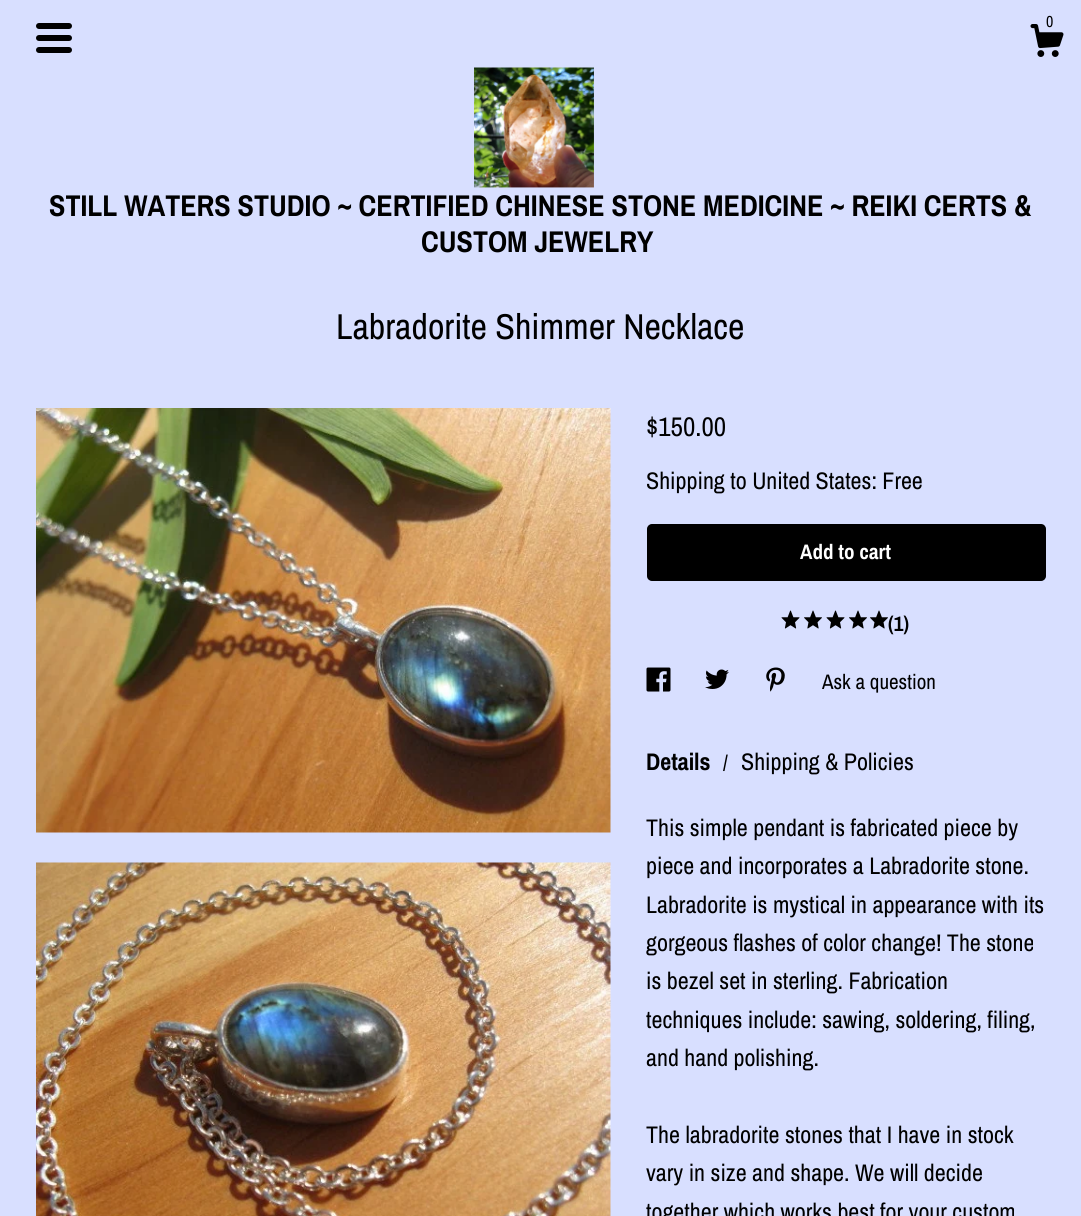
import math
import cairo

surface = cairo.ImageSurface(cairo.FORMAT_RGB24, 1081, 1216)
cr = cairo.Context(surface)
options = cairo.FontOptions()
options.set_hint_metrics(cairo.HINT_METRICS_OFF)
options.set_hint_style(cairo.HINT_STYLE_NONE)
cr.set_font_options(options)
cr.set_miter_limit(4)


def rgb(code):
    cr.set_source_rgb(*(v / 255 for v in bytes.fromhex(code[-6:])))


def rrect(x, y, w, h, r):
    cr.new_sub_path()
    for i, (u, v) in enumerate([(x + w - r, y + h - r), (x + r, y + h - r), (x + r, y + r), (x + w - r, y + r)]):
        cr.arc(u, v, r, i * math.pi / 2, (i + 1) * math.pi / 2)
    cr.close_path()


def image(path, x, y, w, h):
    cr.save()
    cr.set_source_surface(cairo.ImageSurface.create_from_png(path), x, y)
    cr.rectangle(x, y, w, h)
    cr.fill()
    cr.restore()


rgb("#d8dfff")
cr.paint()
image("img/1.png", 1030, 24, 34, 33)
rgb("#000000")
rrect(36, 23, 36, 6, 3)
cr.fill()
rrect(36, 35, 36, 6, 3)
cr.fill()
rrect(36, 47, 36, 6, 3)
cr.fill()
image("img/2.png", 474, 67, 120, 121)
image("img/3.png", 36, 408, 575, 425)
image("img/4.png", 36, 862, 575, 354)
rrect(648, 525, 397, 55, 4)
cr.fill_preserve()
cr.stroke()
image("img/5.png", 781, 610, 19, 19)
image("img/6.png", 804, 610, 18, 19)
image("img/5.png", 826, 610, 19, 19)
image("img/6.png", 849, 610, 18, 19)
image("img/6.png", 870, 610, 18, 19)
image("img/7.png", 646, 667, 25, 25)
image("img/8.png", 705, 669, 24, 20)
image("img/9.png", 766, 667, 19, 25)
cr.select_font_face("Archivo Narrow")
cr.set_font_size(16)
cr.move_to(1046, 27)
cr.show_text("0")
cr.select_font_face("Archivo Narrow", cairo.FONT_SLANT_NORMAL, cairo.FONT_WEIGHT_BOLD)
cr.set_font_size(30)
cr.move_to(49, 216)
cr.show_text("STILL WATERS STUDIO ~ CERTIFIED CHINESE STONE MEDICINE ~ REIKI CERTS &")
cr.move_to(421, 252)
cr.show_text("CUSTOM JEWELRY")
cr.select_font_face("Archivo Narrow")
cr.set_font_size(36)
cr.move_to(336, 339)
cr.show_text("Labradorite Shimmer Necklace")
cr.set_font_size(27)
cr.move_to(646, 436)
cr.show_text("$150.00")
cr.set_font_size(24)
cr.move_to(646, 489)
cr.show_text("Shipping to United States: Free")
cr.select_font_face("Archivo Narrow", cairo.FONT_SLANT_NORMAL, cairo.FONT_WEIGHT_BOLD)
cr.set_font_size(21)
rgb("#ffffff")
cr.move_to(800, 559)
cr.show_text("Add to cart")
rgb("#000000")
cr.move_to(888, 631)
cr.show_text("(1)")
cr.select_font_face("Archivo Narrow")
cr.move_to(822, 689)
cr.show_text("Ask a question")
cr.select_font_face("Archivo Narrow", cairo.FONT_SLANT_NORMAL, cairo.FONT_WEIGHT_BOLD)
cr.set_font_size(24)
cr.move_to(646, 770)
cr.show_text("Details")
cr.select_font_face("Archivo Narrow")
cr.set_font_size(21)
cr.move_to(723, 770)
cr.show_text("/")
cr.set_font_size(24)
for x, y, s in [
    (741, 770, "Shipping & Policies"),
    (646, 836, "This simple pendant is fabricated piece by"),
    (646, 874, "piece and incorporates a Labradorite stone."),
    (646, 913, "Labradorite is mystical in appearance with its"),
    (646, 951, "gorgeous flashes of color change! The stone"),
    (646, 989, "is bezel set in sterling. Fabrication"),
    (646, 1028, "techniques include: sawing, soldering, filing,"),
    (646, 1066, "and hand polishing."),
    (646, 1143, "The labradorite stones that I have in stock"),
    (646, 1181, "vary in size and shape. We will decide"),
    (646, 1220, "together which works best for your custom"),
]:
    cr.move_to(x, y)
    cr.show_text(s)
surface.write_to_png("page.png")
